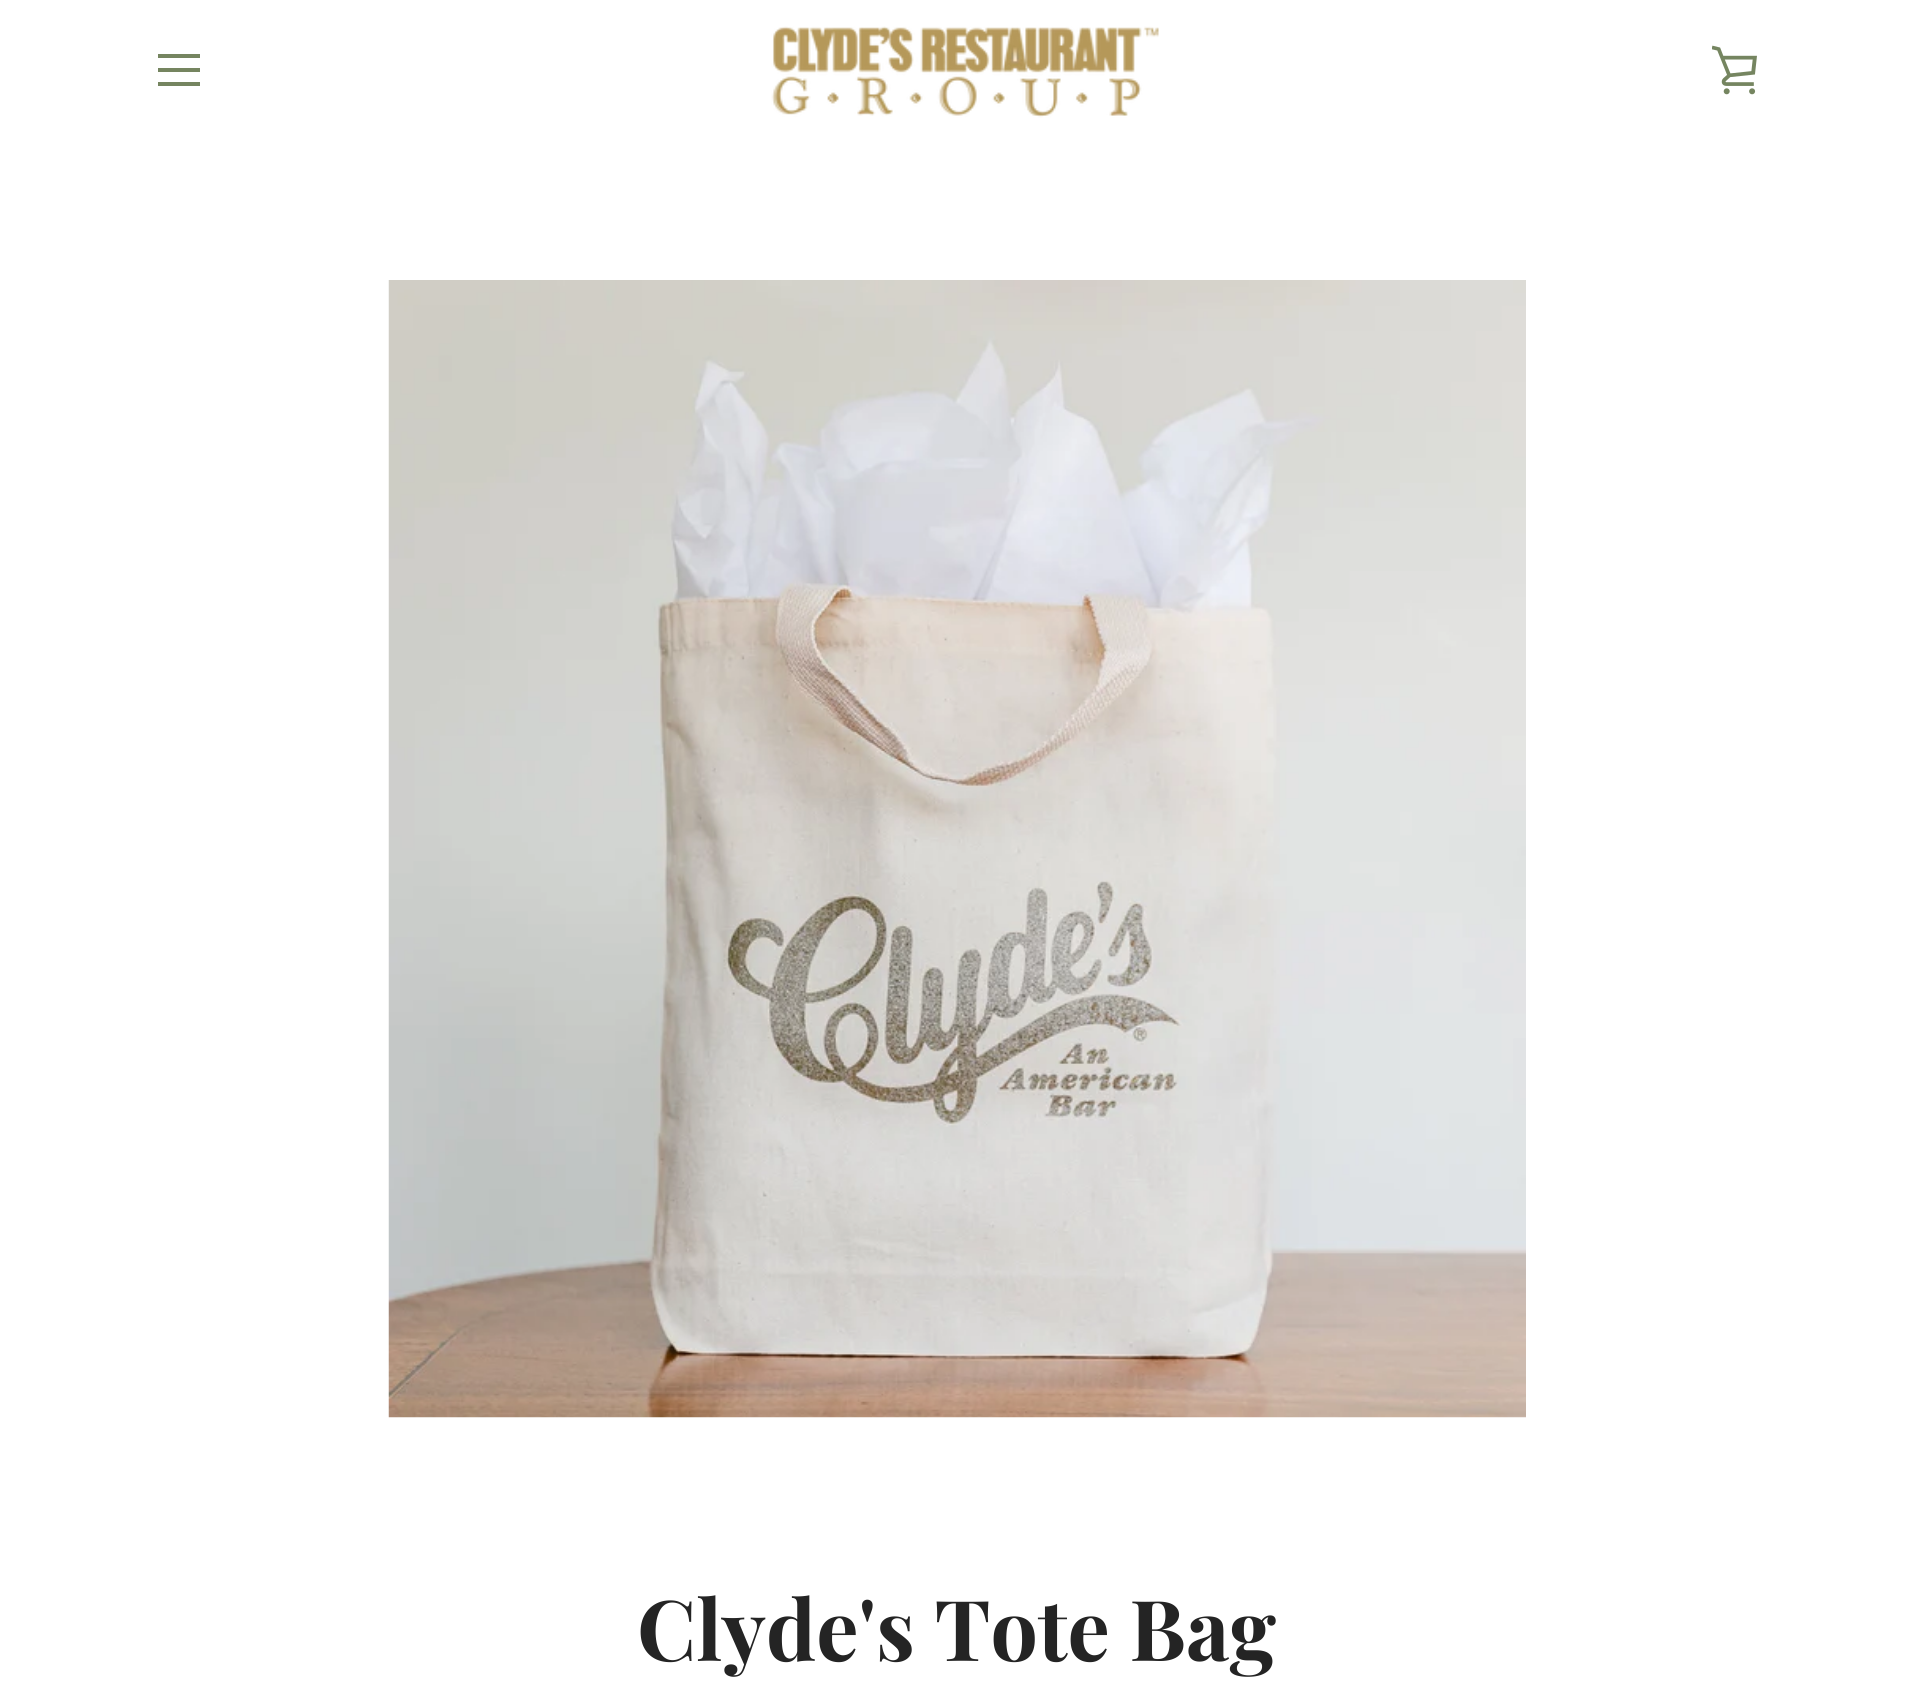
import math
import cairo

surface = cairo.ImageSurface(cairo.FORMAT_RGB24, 1912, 1703)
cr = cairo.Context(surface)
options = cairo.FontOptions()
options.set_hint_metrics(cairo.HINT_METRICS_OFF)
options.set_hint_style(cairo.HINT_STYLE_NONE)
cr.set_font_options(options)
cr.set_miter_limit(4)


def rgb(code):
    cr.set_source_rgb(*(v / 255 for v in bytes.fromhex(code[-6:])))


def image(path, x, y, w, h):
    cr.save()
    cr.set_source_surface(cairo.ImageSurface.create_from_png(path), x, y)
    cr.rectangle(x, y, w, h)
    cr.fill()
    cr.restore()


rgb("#ffffff")
cr.paint()
for x, y, w, h, color in [
    (158, 54, 42, 4, "#758560"),
    (158, 68, 42, 4, "#758560"),
    (158, 82, 42, 4, "#758560"),
]:
    rgb(color)
    cr.rectangle(x, y, w, h)
    cr.fill()
image("img/1.png", 771, 26, 388, 92)
image("img/2.png", 1712, 45, 45, 50)
image("img/3.png", 388, 280, 1138, 1138)
cr.select_font_face("Playfair Display", cairo.FONT_SLANT_NORMAL, cairo.FONT_WEIGHT_BOLD)
cr.set_font_size(84)
rgb("#242424")
cr.move_to(637, 1661)
cr.show_text("Clyde's Tote Bag")
surface.write_to_png("page.png")
